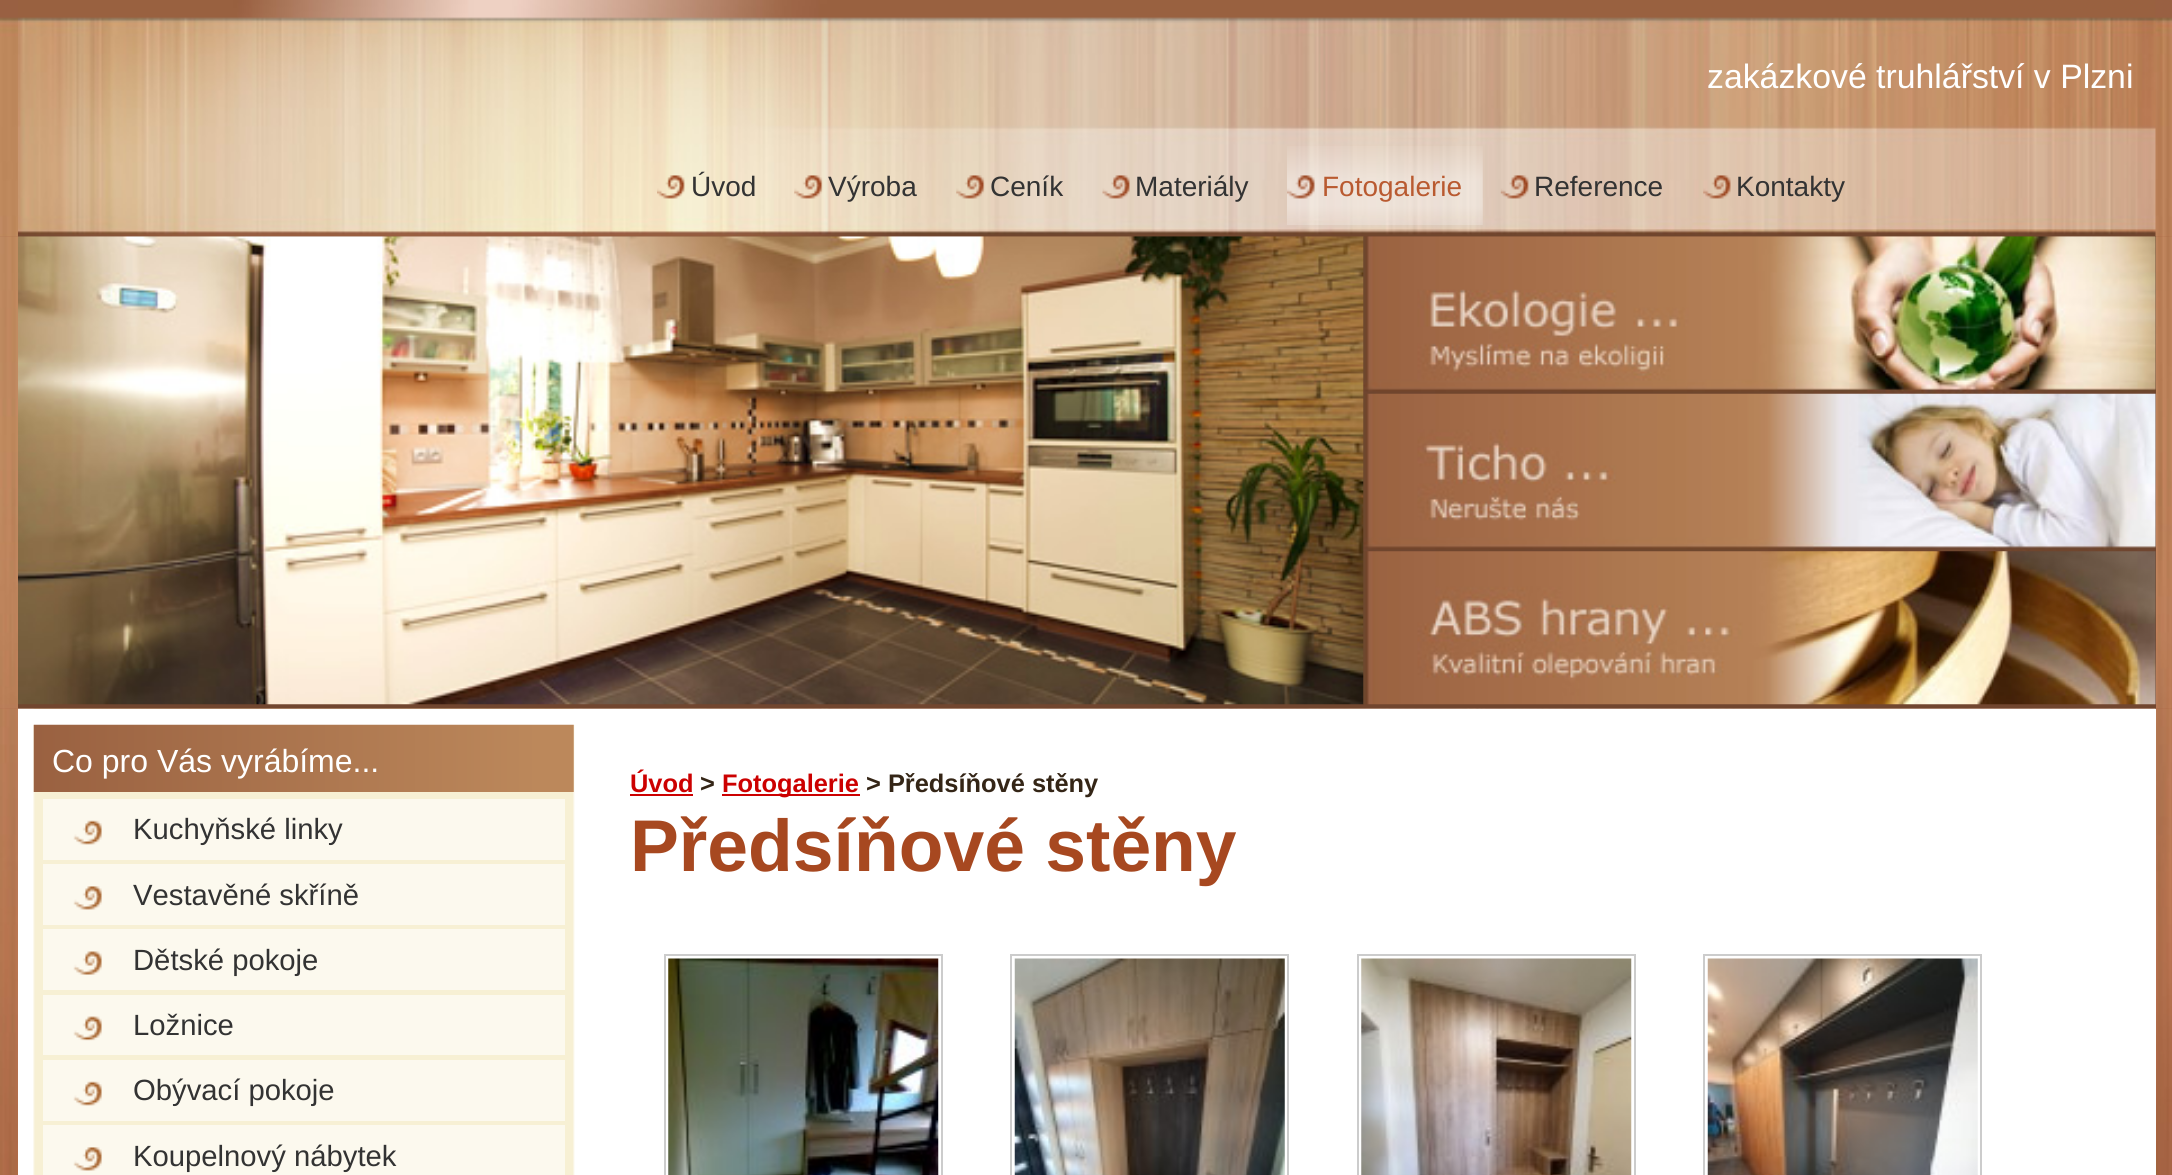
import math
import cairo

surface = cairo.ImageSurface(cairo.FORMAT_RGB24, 2172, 1175)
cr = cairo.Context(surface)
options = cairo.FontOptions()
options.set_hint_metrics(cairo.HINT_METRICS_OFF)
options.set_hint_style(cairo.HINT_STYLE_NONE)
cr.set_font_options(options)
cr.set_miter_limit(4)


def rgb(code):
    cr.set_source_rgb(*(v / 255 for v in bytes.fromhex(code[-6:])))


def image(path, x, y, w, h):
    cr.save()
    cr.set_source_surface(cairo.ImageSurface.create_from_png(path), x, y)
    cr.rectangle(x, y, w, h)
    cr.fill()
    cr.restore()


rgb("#ffffff")
cr.paint()
image("img/1.png", 0, 236, 2172, 473)
image("img/2.png", 0, 0, 2172, 237)
image("img/11.png", 0, 236, 2172, 473)
rgb("#71462f")
cr.rectangle(18, 236, 2138, 473)
cr.fill()
image("img/12.png", 18, 236, 1346, 469)
image("img/13.png", 1363, 236, 793, 158)
image("img/3.png", 18, 0, 2138, 237)
image("img/4.png", 657, 175, 28, 24)
image("img/5.png", 794, 175, 29, 24)
image("img/6.png", 956, 175, 29, 24)
image("img/7.png", 1102, 175, 28, 24)
image("img/8.png", 1287, 146, 196, 79)
image("img/9.png", 1500, 175, 29, 24)
image("img/10.png", 1703, 175, 28, 24)
image("img/14.png", 1363, 393, 793, 158)
image("img/15.png", 1363, 551, 793, 154)
image("img/16.png", 0, 708, 2172, 467)
rgb("#ffffff")
cr.rectangle(2155, 725, 1, 450)
cr.fill()
image("img/17.png", 18, 708, 2138, 467)
cr.rectangle(33, 709, 2123, 16)
cr.fill()
image("img/18.png", 33, 724, 541, 68)
rgb("#fcf9ee")
cr.rectangle(43, 799, 522, 61)
cr.fill()
image("img/19.png", 73, 820, 29, 25)
cr.rectangle(43, 864, 522, 61)
cr.fill()
image("img/20.png", 73, 886, 29, 24)
cr.rectangle(43, 929, 522, 61)
cr.fill()
image("img/21.png", 73, 951, 29, 24)
cr.rectangle(43, 995, 522, 60)
cr.fill()
image("img/22.png", 73, 1016, 29, 25)
cr.rectangle(43, 1060, 522, 61)
cr.fill()
image("img/23.png", 73, 1081, 29, 25)
cr.rectangle(43, 1125, 522, 50)
cr.fill()
image("img/24.png", 73, 1147, 29, 24)
rgb("#cc0000")
cr.rectangle(630, 794, 63, 2)
cr.fill()
cr.rectangle(722, 794, 138, 2)
cr.fill()
cr.rectangle(665, 955, 277, 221)
rgb("#cccccc")
cr.stroke()
image("img/25.png", 668, 958, 271, 217)
cr.rectangle(1011, 955, 277, 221)
cr.stroke()
image("img/26.png", 1014, 958, 271, 217)
cr.rectangle(1358, 955, 277, 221)
cr.stroke()
image("img/27.png", 1361, 958, 271, 217)
cr.rectangle(1704, 955, 277, 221)
cr.stroke()
image("img/28.png", 1707, 958, 271, 217)
cr.select_font_face("Liberation Sans")
cr.set_font_size(33.8)
rgb("#ffffff")
cr.move_to(1707, 88)
cr.show_text("zakázkové truhlářství v Plzni")
cr.set_font_size(28)
rgb("#333333")
for x, y, s in [
    (691, 196, "Úvod"),
    (828, 196, "Výroba"),
    (990, 196, "Ceník"),
    (1135, 196, "Materiály"),
]:
    cr.move_to(x, y)
    cr.show_text(s)
rgb("#b95a30")
cr.move_to(1322, 196)
cr.show_text("Fotogalerie")
rgb("#333333")
cr.move_to(1534, 196)
cr.show_text("Reference")
cr.move_to(1736, 196)
cr.show_text("Kontakty")
cr.set_font_size(32)
rgb("#ffffff")
cr.move_to(52, 772)
cr.show_text("Co pro Vás vyrábíme...")
cr.set_font_size(29.25)
rgb("#333333")
for x, y, s in [
    (133, 839, "Kuchyňské linky"),
    (133, 905, "Vestavěné skříně"),
    (133, 970, "Dětské pokoje"),
    (133, 1035, "Ložnice"),
    (133, 1100, "Obývací pokoje"),
    (133, 1166, "Koupelnový nábytek"),
]:
    cr.move_to(x, y)
    cr.show_text(s)
cr.select_font_face("Liberation Sans", cairo.FONT_SLANT_NORMAL, cairo.FONT_WEIGHT_BOLD)
cr.set_font_size(25.4)
rgb("#cc0000")
cr.move_to(630, 792)
cr.show_text("Úvod")
rgb("#342516")
cr.move_to(700, 792)
cr.show_text(">")
rgb("#cc0000")
cr.move_to(722, 792)
cr.show_text("Fotogalerie")
rgb("#342516")
cr.move_to(866, 792)
cr.show_text("> Předsíňové stěny")
cr.set_font_size(73.25)
rgb("#a74820")
cr.move_to(630, 871)
cr.show_text("Předsíňové stěny")
surface.write_to_png("page.png")
